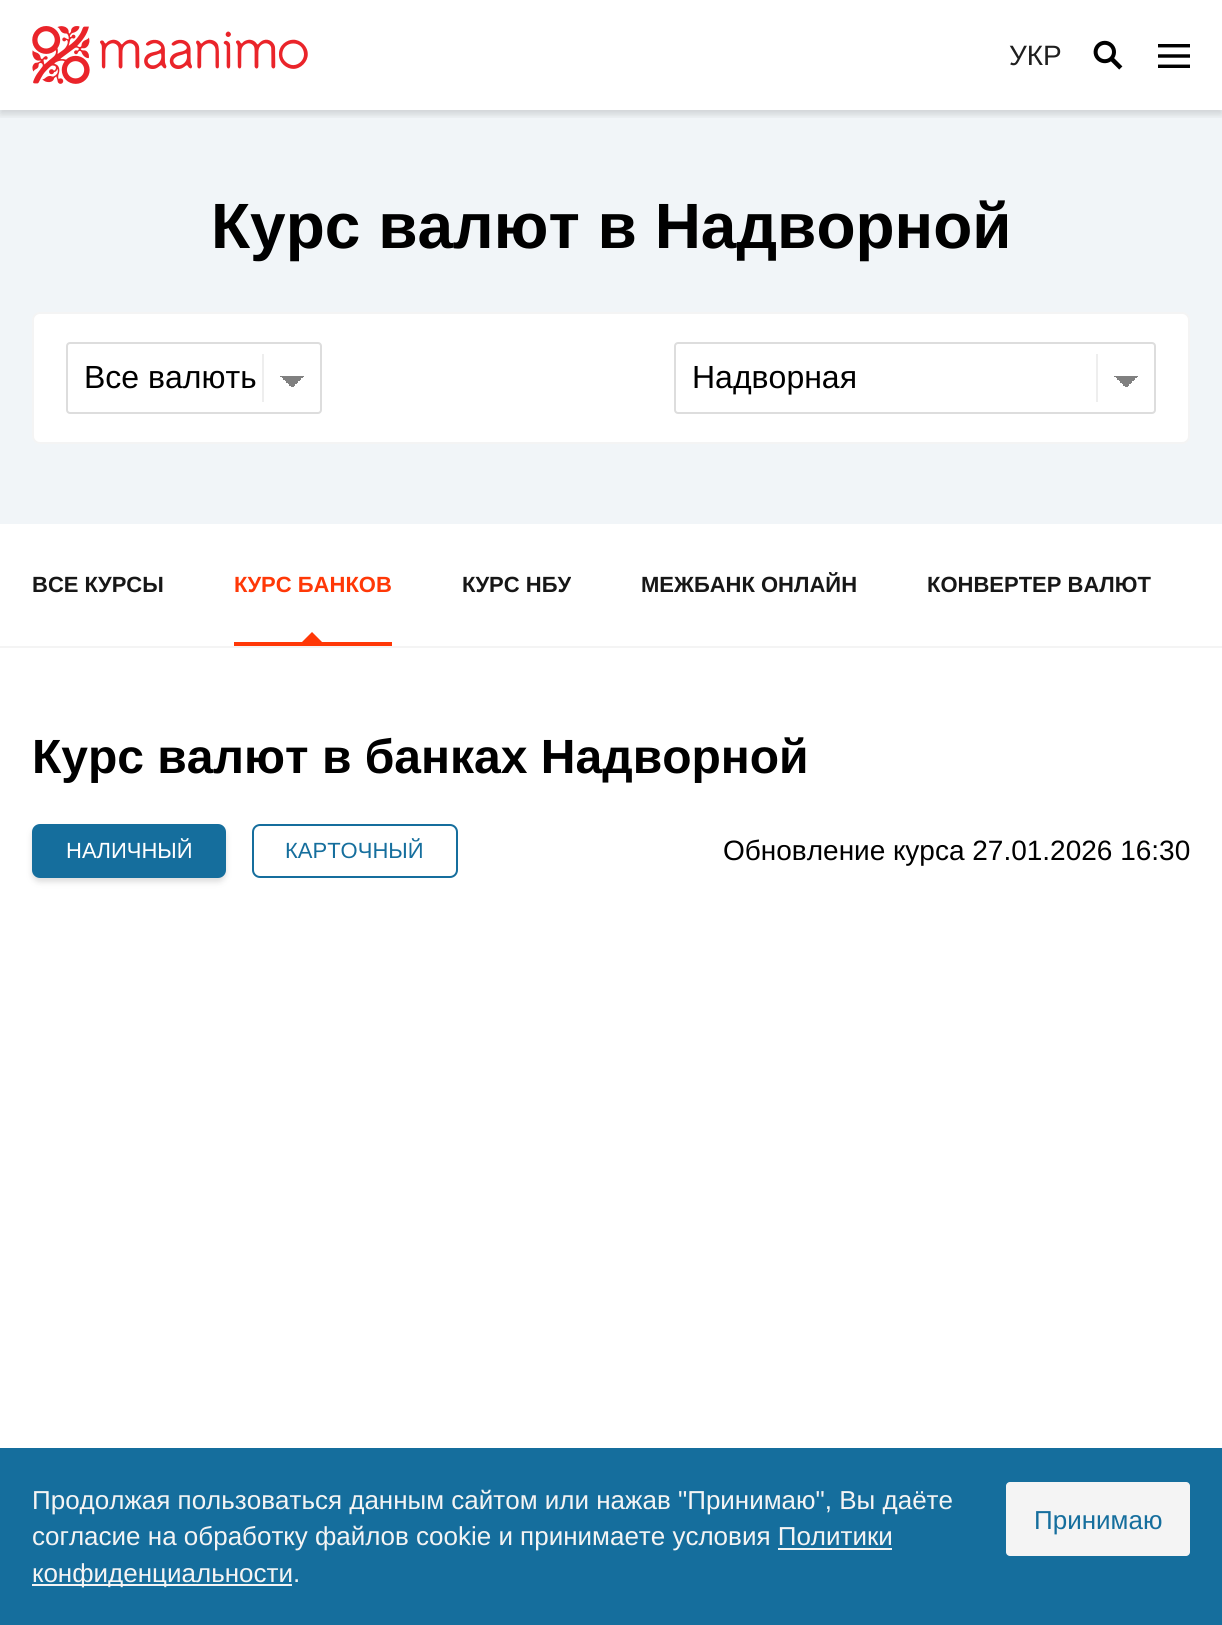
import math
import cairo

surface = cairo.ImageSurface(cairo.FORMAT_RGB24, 1222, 1625)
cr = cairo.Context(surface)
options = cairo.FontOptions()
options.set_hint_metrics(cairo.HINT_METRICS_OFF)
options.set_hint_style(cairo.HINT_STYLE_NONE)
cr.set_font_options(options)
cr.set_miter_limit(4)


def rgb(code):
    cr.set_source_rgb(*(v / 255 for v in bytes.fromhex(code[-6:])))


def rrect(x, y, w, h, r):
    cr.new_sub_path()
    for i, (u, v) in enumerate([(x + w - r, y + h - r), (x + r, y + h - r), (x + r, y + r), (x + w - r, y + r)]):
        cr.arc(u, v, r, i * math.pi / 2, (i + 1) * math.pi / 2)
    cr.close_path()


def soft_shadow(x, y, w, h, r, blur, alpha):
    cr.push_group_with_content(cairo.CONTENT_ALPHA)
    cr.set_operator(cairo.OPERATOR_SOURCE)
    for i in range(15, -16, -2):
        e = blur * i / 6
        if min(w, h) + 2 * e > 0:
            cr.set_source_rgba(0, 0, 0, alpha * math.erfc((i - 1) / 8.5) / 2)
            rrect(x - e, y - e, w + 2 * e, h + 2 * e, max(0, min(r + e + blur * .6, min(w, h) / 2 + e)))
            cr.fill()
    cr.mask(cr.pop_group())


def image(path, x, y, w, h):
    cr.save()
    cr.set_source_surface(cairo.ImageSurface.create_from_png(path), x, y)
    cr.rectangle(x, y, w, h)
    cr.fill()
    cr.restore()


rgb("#ffffff")
cr.paint()
rgb("#f1f5f8")
cr.rectangle(0, 110, 1222, 414)
cr.fill()
cr.save()
cr.rectangle(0, 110, 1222, 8)
cr.clip()
rgb("#000000")
soft_shadow(0, 4, 1222, 110, 0, 4, 0.15)
cr.restore()
image("img/1.png", 32, 26, 276, 58)
image("img/2.png", 1093, 40, 30, 30)
image("img/3.png", 1158, 44, 32, 24)
rgb("#ffffff")
rrect(33, 313, 1156, 130, 7)
cr.fill_preserve()
rgb("#f4f4f4")
cr.stroke()
rgb("#eeeeee")
cr.rectangle(262, 354, 2, 48)
cr.fill()
gradient = cairo.LinearGradient(292, 376, 304, 388)
gradient.add_color_stop_rgba(0.5, 0.502, 0.502, 0.502, 1)
gradient.add_color_stop_rgba(0.5, 1, 1, 1, 1)
cr.set_source(gradient)
cr.rectangle(292, 376, 12, 11)
cr.fill()
gradient = cairo.LinearGradient(280, 388, 292, 376)
gradient.add_color_stop_rgba(0.5, 1, 1, 1, 1)
gradient.add_color_stop_rgba(0.5, 0.502, 0.502, 0.502, 1)
cr.set_source(gradient)
cr.rectangle(280, 376, 12, 11)
cr.fill()
rrect(67, 343, 254, 70, 3)
rgb("#dddddd")
cr.stroke()
rgb("#eeeeee")
cr.rectangle(1096, 354, 2, 48)
cr.fill()
gradient = cairo.LinearGradient(1126, 376, 1138, 388)
gradient.add_color_stop_rgba(0.5, 0.502, 0.502, 0.502, 1)
gradient.add_color_stop_rgba(0.5, 1, 1, 1, 1)
cr.set_source(gradient)
cr.rectangle(1126, 376, 12, 11)
cr.fill()
gradient = cairo.LinearGradient(1114, 388, 1126, 376)
gradient.add_color_stop_rgba(0.5, 1, 1, 1, 1)
gradient.add_color_stop_rgba(0.5, 0.502, 0.502, 0.502, 1)
cr.set_source(gradient)
cr.rectangle(1114, 376, 12, 11)
cr.fill()
rrect(675, 343, 480, 70, 3)
rgb("#dddddd")
cr.stroke()
rgb("#f4f4f4")
cr.rectangle(0, 646, 1222, 2)
cr.fill()
rgb("#ff3807")
cr.new_path()
cr.move_to(326, 646)
cr.line_to(298, 646)
cr.line_to(312, 632)
cr.close_path()
cr.fill()
cr.rectangle(234, 642, 158, 4)
cr.fill()
rgb("#5a5a5a")
soft_shadow(32, 828, 194, 54, 8, 3, 0.2)
rgb("#156e9d")
rrect(33, 825, 192, 52, 7)
cr.fill_preserve()
cr.stroke()
rrect(253, 825, 204, 52, 7)
cr.stroke()
for x, y, w, h, color in [
    (0, 1448, 1222, 177, "#156e9d"),
    (778, 1548, 114, 2, "#f4f4f4"),
    (32, 1584, 260, 2, "#f4f4f4"),
]:
    rgb(color)
    cr.rectangle(x, y, w, h)
    cr.fill()
rrect(1006, 1482, 184, 74, 4)
cr.fill()
cr.select_font_face("Liberation Sans")
cr.set_font_size(28)
rgb("#1f1f1f")
cr.move_to(1009, 65)
cr.show_text("УКР")
cr.select_font_face("Liberation Sans", cairo.FONT_SLANT_NORMAL, cairo.FONT_WEIGHT_BOLD)
cr.set_font_size(64)
rgb("#000000")
cr.move_to(211, 248)
cr.show_text("Курс валют в Надворной")
cr.save()
cr.rectangle(84, 360, 172, 36)
cr.clip()
cr.select_font_face("Liberation Sans")
cr.set_font_size(32)
cr.move_to(84, 388)
cr.show_text("Все валюты")
cr.restore()
cr.select_font_face("Liberation Sans")
cr.set_font_size(32)
cr.move_to(692, 388)
cr.show_text("Надворная")
cr.select_font_face("Liberation Sans", cairo.FONT_SLANT_NORMAL, cairo.FONT_WEIGHT_BOLD)
cr.set_font_size(22)
rgb("#171717")
cr.move_to(32, 592)
cr.show_text("ВСЕ КУРСЫ")
rgb("#ff3807")
cr.move_to(234, 592)
cr.show_text("КУРС БАНКОВ")
rgb("#171717")
for x, y, s in [
    (462, 592, "КУРС НБУ"),
    (641, 592, "МЕЖБАНК ОНЛАЙН"),
    (927, 592, "КОНВЕРТЕР ВАЛЮТ"),
]:
    cr.move_to(x, y)
    cr.show_text(s)
cr.set_font_size(48)
rgb("#000000")
cr.move_to(32, 773)
cr.show_text("Курс валют в банках Надворной")
cr.select_font_face("Liberation Sans")
cr.set_font_size(22)
rgb("#ffffff")
cr.move_to(66, 858)
cr.show_text("НАЛИЧНЫЙ")
rgb("#156e9d")
cr.move_to(285, 858)
cr.show_text("КАРТОЧНЫЙ")
cr.set_font_size(28)
rgb("#000000")
cr.move_to(723, 860)
cr.show_text("Обновление курса 27.01.2026 16:30")
cr.set_font_size(26)
rgb("#f4f4f4")
for x, y, s in [
    (32, 1509, "Продолжая пользоваться данным сайтом или нажав \"Принимаю\", Вы даёте"),
    (32, 1545, "согласие на обработку файлов cookie и принимаете условия Политики"),
    (32, 1582, "конфиденциальности."),
]:
    cr.move_to(x, y)
    cr.show_text(s)
rgb("#156e9d")
cr.move_to(1034, 1529)
cr.show_text("Принимаю")
surface.write_to_png("page.png")
